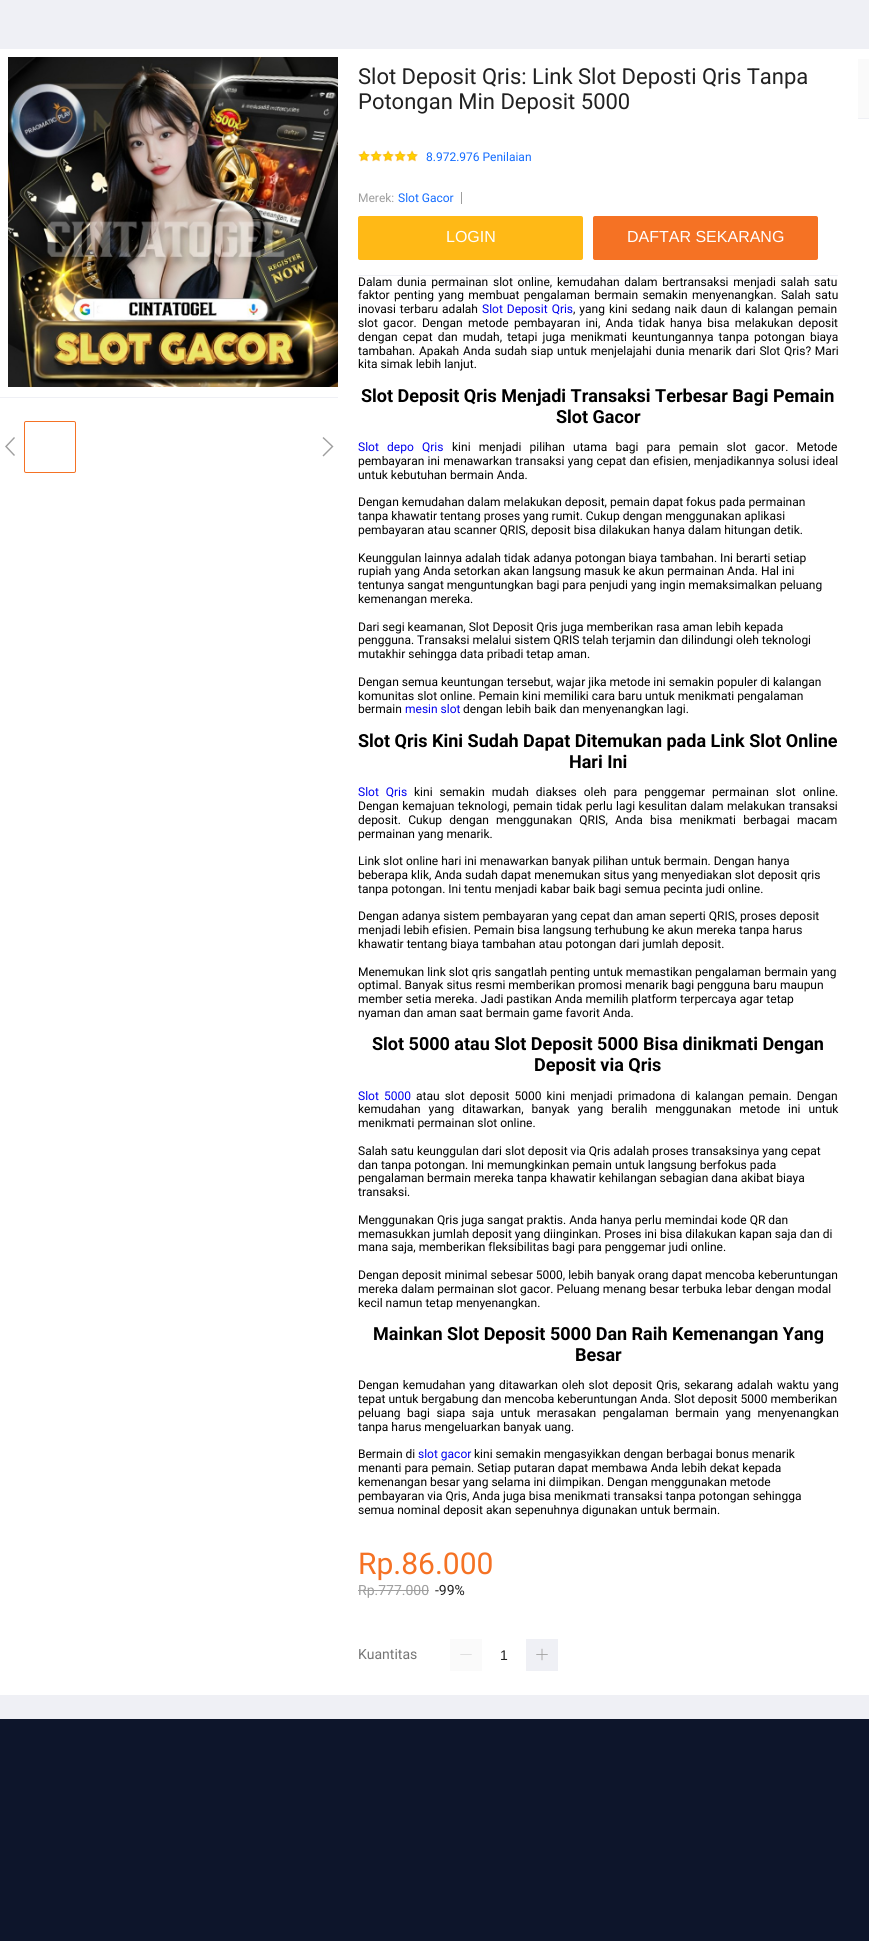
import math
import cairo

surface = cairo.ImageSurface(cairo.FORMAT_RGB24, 869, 1941)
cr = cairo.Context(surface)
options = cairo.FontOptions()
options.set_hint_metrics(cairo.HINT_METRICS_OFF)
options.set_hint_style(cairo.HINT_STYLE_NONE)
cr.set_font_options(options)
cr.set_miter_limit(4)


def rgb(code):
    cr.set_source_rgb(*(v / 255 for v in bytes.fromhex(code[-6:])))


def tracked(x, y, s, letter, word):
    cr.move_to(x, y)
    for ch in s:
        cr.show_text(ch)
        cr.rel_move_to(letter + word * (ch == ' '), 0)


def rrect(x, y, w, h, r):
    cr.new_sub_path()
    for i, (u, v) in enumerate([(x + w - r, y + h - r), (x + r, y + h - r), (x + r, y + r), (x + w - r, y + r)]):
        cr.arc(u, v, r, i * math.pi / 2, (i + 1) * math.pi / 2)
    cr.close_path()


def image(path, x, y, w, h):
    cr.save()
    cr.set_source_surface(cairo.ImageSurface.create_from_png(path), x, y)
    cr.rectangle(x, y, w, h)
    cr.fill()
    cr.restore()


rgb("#0d152b")
cr.paint()
for x, y, w, h, color in [
    (0, 0, 869, 49, "#eff0f5"),
    (0, 1695, 869, 24, "#eff0f5"),
    (0, 49, 869, 1646, "#ffffff"),
    (0, 397, 338, 1, "#eff0f5"),
]:
    rgb(color)
    cr.rectangle(x, y, w, h)
    cr.fill()
image("img/1.png", 8, 57, 330, 330)
rgb("#9e9e9e")
cr.new_path()
cr.move_to(15, 455)
cr.line_to(7, 446.5)
cr.line_to(15, 438)
cr.line_to(14, 437)
cr.line_to(5, 446.5)
cr.line_to(14, 456)
cr.close_path()
cr.fill()
rrect(24.5, 421.5, 51, 51, 1.5)
rgb("#f57224")
cr.set_line_width(1)
cr.stroke()
rgb("#9e9e9e")
cr.new_path()
cr.move_to(323.5, 456.5)
cr.line_to(322.5, 455.5)
cr.line_to(331.5, 446.5)
cr.line_to(322.5, 438)
cr.line_to(323.5, 437)
cr.line_to(333.5, 446.5)
cr.close_path()
cr.fill()
image("img/2.png", 358, 150, 12, 12)
image("img/2.png", 370, 150, 12, 12)
image("img/2.png", 382, 150, 12, 12)
image("img/2.png", 394, 150, 12, 12)
image("img/2.png", 406, 150, 12, 12)
rgb("#eff0f5")
cr.rectangle(358, 275, 480, 1)
cr.fill()
rgb("#9e9e9e")
cr.rectangle(461, 192, 1, 12)
cr.fill()
rgb("#ffb916")
rrect(358, 216, 225, 44, 2)
cr.fill()
rgb("#f57224")
rrect(593, 216, 225, 44, 2)
cr.fill()
rgb("#9e9e9e")
cr.rectangle(358, 1590, 71, 1)
cr.fill()
rgb("#fafafa")
cr.rectangle(450, 1639, 32, 32)
cr.fill()
image("img/3.png", 460, 1654, 12, 1)
rgb("#eff0f5")
cr.rectangle(526, 1639, 32, 32)
cr.fill()
image("img/4.png", 536, 1648, 12, 13)
rgb("#fafafa")
cr.rectangle(858, 59, 11, 59)
cr.fill()
rgb("#eff0f5")
cr.rectangle(858, 118, 11, 1)
cr.fill()
cr.select_font_face("Roboto")
cr.set_font_size(22)
rgb("#212121")
cr.move_to(358, 84)
cr.show_text("Slot Deposit Qris: Link Slot Deposti Qris Tanpa")
cr.move_to(358, 109)
cr.show_text("Potongan Min Deposit 5000")
cr.set_font_size(12)
rgb("#136cff")
cr.move_to(426, 161)
cr.show_text("8.972.976 Penilaian")
rgb("#9e9e9e")
cr.move_to(358, 202)
cr.show_text("Merek:")
rgb("#136cff")
cr.move_to(398, 202)
cr.show_text("Slot Gacor")
cr.select_font_face("Liberation Sans")
cr.set_font_size(16)
rgb("#ffffff")
cr.move_to(446, 242)
cr.show_text("LOGIN")
cr.move_to(627, 242)
cr.show_text("DAFTAR SEKARANG")
cr.select_font_face("Roboto")
cr.set_font_size(12)
rgb("#000000")
tracked(358, 286, "Dalam dunia permainan slot online, kemudahan dalam bertransaksi menjadi salah satu", 0, 1.75)
tracked(358, 299, "faktor penting yang membuat pengalaman bermain semakin menyenangkan. Salah satu", 0, 1.4)
tracked(358, 313, "inovasi terbaru adalah", 0, 1)
rgb("#0000ee")
tracked(482, 313, "Slot Deposit Qris", 0, 1)
rgb("#000000")
tracked(573, 313, ", yang kini sedang naik daun di kalangan pemain", 0, 1)
tracked(358, 327, "slot gacor. Dengan metode pembayaran ini, Anda tidak hanya bisa melakukan deposit", 0, 2.25)
tracked(358, 341, "dengan cepat dan mudah, tetapi juga menikmati keuntungannya tanpa potongan biaya", 0, 2.1)
tracked(358, 355, "tambahan. Apakah Anda sudah siap untuk menjelajahi dunia menarik dari Slot Qris? Mari", 0, 0.75)
cr.move_to(358, 368)
cr.show_text("kita simak lebih lanjut.")
cr.select_font_face("Roboto", cairo.FONT_SLANT_NORMAL, cairo.FONT_WEIGHT_BOLD)
cr.set_font_size(18)
cr.move_to(361, 402)
cr.show_text("Slot Deposit Qris Menjadi Transaksi Terbesar Bagi Pemain")
cr.move_to(556, 423)
cr.show_text("Slot Gacor")
cr.select_font_face("Roboto")
cr.set_font_size(12)
rgb("#0000ee")
tracked(358, 451, "Slot depo Qris", 0, 5.25)
rgb("#000000")
tracked(452, 451, "kini menjadi pilihan utama bagi para pemain slot gacor. Metode", 0, 5.25)
tracked(358, 465, "pembayaran ini menawarkan transaksi yang cepat dan efisien, menjadikannya solusi ideal", 0, 0.25)
for x, y, s in [
    (358, 479, "untuk kebutuhan bermain Anda."),
    (358, 506, "Dengan kemudahan dalam melakukan deposit, pemain dapat fokus pada permainan"),
    (358, 520, "tanpa khawatir tentang proses yang rumit. Cukup dengan menggunakan aplikasi"),
    (358, 534, "pembayaran atau scanner QRIS, deposit bisa dilakukan hanya dalam hitungan detik."),
    (358, 562, "Keunggulan lainnya adalah tidak adanya potongan biaya tambahan. Ini berarti setiap"),
    (358, 575, "rupiah yang Anda setorkan akan langsung masuk ke akun permainan Anda. Hal ini"),
    (358, 589, "tentunya sangat menguntungkan bagi para penjudi yang ingin memaksimalkan peluang"),
    (358, 603, "kemenangan mereka."),
    (358, 631, "Dari segi keamanan, Slot Deposit Qris juga memberikan rasa aman lebih kepada"),
    (358, 644, "pengguna. Transaksi melalui sistem QRIS telah terjamin dan dilindungi oleh teknologi"),
    (358, 658, "mutakhir sehingga data pribadi tetap aman."),
    (358, 686, "Dengan semua keuntungan tersebut, wajar jika metode ini semakin populer di kalangan"),
    (358, 700, "komunitas slot online. Pemain kini memiliki cara baru untuk menikmati pengalaman"),
    (358, 713, "bermain"),
]:
    cr.move_to(x, y)
    cr.show_text(s)
rgb("#0000ee")
cr.move_to(405, 713)
cr.show_text("mesin slot")
rgb("#000000")
cr.move_to(463, 713)
cr.show_text("dengan lebih baik dan menyenangkan lagi.")
cr.select_font_face("Roboto", cairo.FONT_SLANT_NORMAL, cairo.FONT_WEIGHT_BOLD)
cr.set_font_size(18)
cr.move_to(358, 747)
cr.show_text("Slot Qris Kini Sudah Dapat Ditemukan pada Link Slot Online")
cr.move_to(569, 768)
cr.show_text("Hari Ini")
cr.select_font_face("Roboto")
cr.set_font_size(12)
rgb("#0000ee")
tracked(358, 796, "Slot Qris", 0, 4)
rgb("#000000")
tracked(414, 796, "kini semakin mudah diakses oleh para penggemar permainan slot online.", 0, 4)
tracked(358, 810, "Dengan kemajuan teknologi, pemain tidak perlu lagi kesulitan dalam melakukan transaksi", 0, 0.5)
tracked(358, 824, "deposit. Cukup dengan menggunakan QRIS, Anda bisa menikmati berbagai macam", 0, 4.25)
for x, y, s in [
    (358, 838, "permainan yang menarik."),
    (358, 865, "Link slot online hari ini menawarkan banyak pilihan untuk bermain. Dengan hanya"),
    (358, 879, "beberapa klik, Anda sudah dapat menemukan situs yang menyediakan slot deposit qris"),
    (358, 893, "tanpa potongan. Ini tentu menjadi kabar baik bagi semua pecinta judi online."),
    (358, 920, "Dengan adanya sistem pembayaran yang cepat dan aman seperti QRIS, proses deposit"),
    (358, 934, "menjadi lebih efisien. Pemain bisa langsung terhubung ke akun mereka tanpa harus"),
    (358, 948, "khawatir tentang biaya tambahan atau potongan dari jumlah deposit."),
    (358, 976, "Menemukan link slot qris sangatlah penting untuk memastikan pengalaman bermain yang"),
    (358, 989, "optimal. Banyak situs resmi memberikan promosi menarik bagi pengguna baru maupun"),
    (358, 1003, "member setia mereka. Jadi pastikan Anda memilih platform terpercaya agar tetap"),
    (358, 1017, "nyaman dan aman saat bermain game favorit Anda."),
]:
    cr.move_to(x, y)
    cr.show_text(s)
cr.select_font_face("Roboto", cairo.FONT_SLANT_NORMAL, cairo.FONT_WEIGHT_BOLD)
cr.set_font_size(18)
cr.move_to(372, 1050)
cr.show_text("Slot 5000 atau Slot Deposit 5000 Bisa dinikmati Dengan")
cr.move_to(534, 1071)
cr.show_text("Deposit via Qris")
cr.select_font_face("Roboto")
cr.set_font_size(12)
rgb("#0000ee")
tracked(358, 1100, "Slot 5000", 0, 2.25)
rgb("#000000")
tracked(416, 1100, "atau slot deposit 5000 kini menjadi primadona di kalangan pemain. Dengan", 0, 2.1)
tracked(358, 1113, "kemudahan yang ditawarkan, banyak yang beralih menggunakan metode ini untuk", 0, 5)
for x, y, s in [
    (358, 1127, "menikmati permainan slot online."),
    (358, 1155, "Salah satu keunggulan dari slot deposit via Qris adalah proses transaksinya yang cepat"),
    (358, 1169, "dan tanpa potongan. Ini memungkinkan pemain untuk langsung berfokus pada"),
    (358, 1182, "pengalaman bermain mereka tanpa khawatir kehilangan sebagian dana akibat biaya"),
    (358, 1196, "transaksi."),
    (358, 1224, "Menggunakan Qris juga sangat praktis. Anda hanya perlu memindai kode QR dan"),
    (358, 1238, "memasukkan jumlah deposit yang diinginkan. Proses ini bisa dilakukan kapan saja dan di"),
    (358, 1251, "mana saja, memberikan fleksibilitas bagi para penggemar judi online."),
    (358, 1279, "Dengan deposit minimal sebesar 5000, lebih banyak orang dapat mencoba keberuntungan"),
    (358, 1293, "mereka dalam permainan slot gacor. Peluang menang besar terbuka lebar dengan modal"),
    (358, 1307, "kecil namun tetap menyenangkan."),
]:
    cr.move_to(x, y)
    cr.show_text(s)
cr.select_font_face("Roboto", cairo.FONT_SLANT_NORMAL, cairo.FONT_WEIGHT_BOLD)
cr.set_font_size(18)
cr.move_to(373, 1340)
cr.show_text("Mainkan Slot Deposit 5000 Dan Raih Kemenangan Yang")
cr.move_to(575, 1361)
cr.show_text("Besar")
cr.select_font_face("Roboto")
cr.set_font_size(12)
tracked(358, 1389, "Dengan kemudahan yang ditawarkan oleh slot deposit Qris, sekarang adalah waktu yang", 0, 1)
cr.move_to(358, 1403)
cr.show_text("tepat untuk bergabung dan mencoba keberuntungan Anda. Slot deposit 5000 memberikan")
tracked(358, 1417, "peluang bagi siapa saja untuk merasakan pengalaman bermain yang menyenangkan", 0, 3.5)
cr.move_to(358, 1431)
cr.show_text("tanpa harus mengeluarkan banyak uang.")
cr.move_to(358, 1458)
cr.show_text("Bermain di")
rgb("#0000ee")
cr.move_to(418, 1458)
cr.show_text("slot gacor")
rgb("#000000")
for x, y, s in [
    (474, 1458, "kini semakin mengasyikkan dengan berbagai bonus menarik"),
    (358, 1472, "menanti para pemain. Setiap putaran dapat membawa Anda lebih dekat kepada"),
    (358, 1486, "kemenangan besar yang selama ini diimpikan. Dengan menggunakan metode"),
    (358, 1500, "pembayaran via Qris, Anda juga bisa menikmati transaksi tanpa potongan sehingga"),
    (358, 1514, "semua nominal deposit akan sepenuhnya digunakan untuk bermain."),
]:
    cr.move_to(x, y)
    cr.show_text(s)
cr.set_font_size(30)
rgb("#f57224")
cr.move_to(358, 1574)
cr.show_text("Rp.86.000")
cr.set_font_size(14)
rgb("#9e9e9e")
cr.move_to(358, 1595)
cr.show_text("Rp.777.000")
rgb("#212121")
cr.move_to(435, 1595)
cr.show_text("-99%")
rgb("#757575")
cr.move_to(358, 1659)
cr.show_text("Kuantitas")
cr.select_font_face("Liberation Sans")
rgb("#212121")
cr.move_to(500, 1660)
cr.show_text("1")
surface.write_to_png("page.png")
